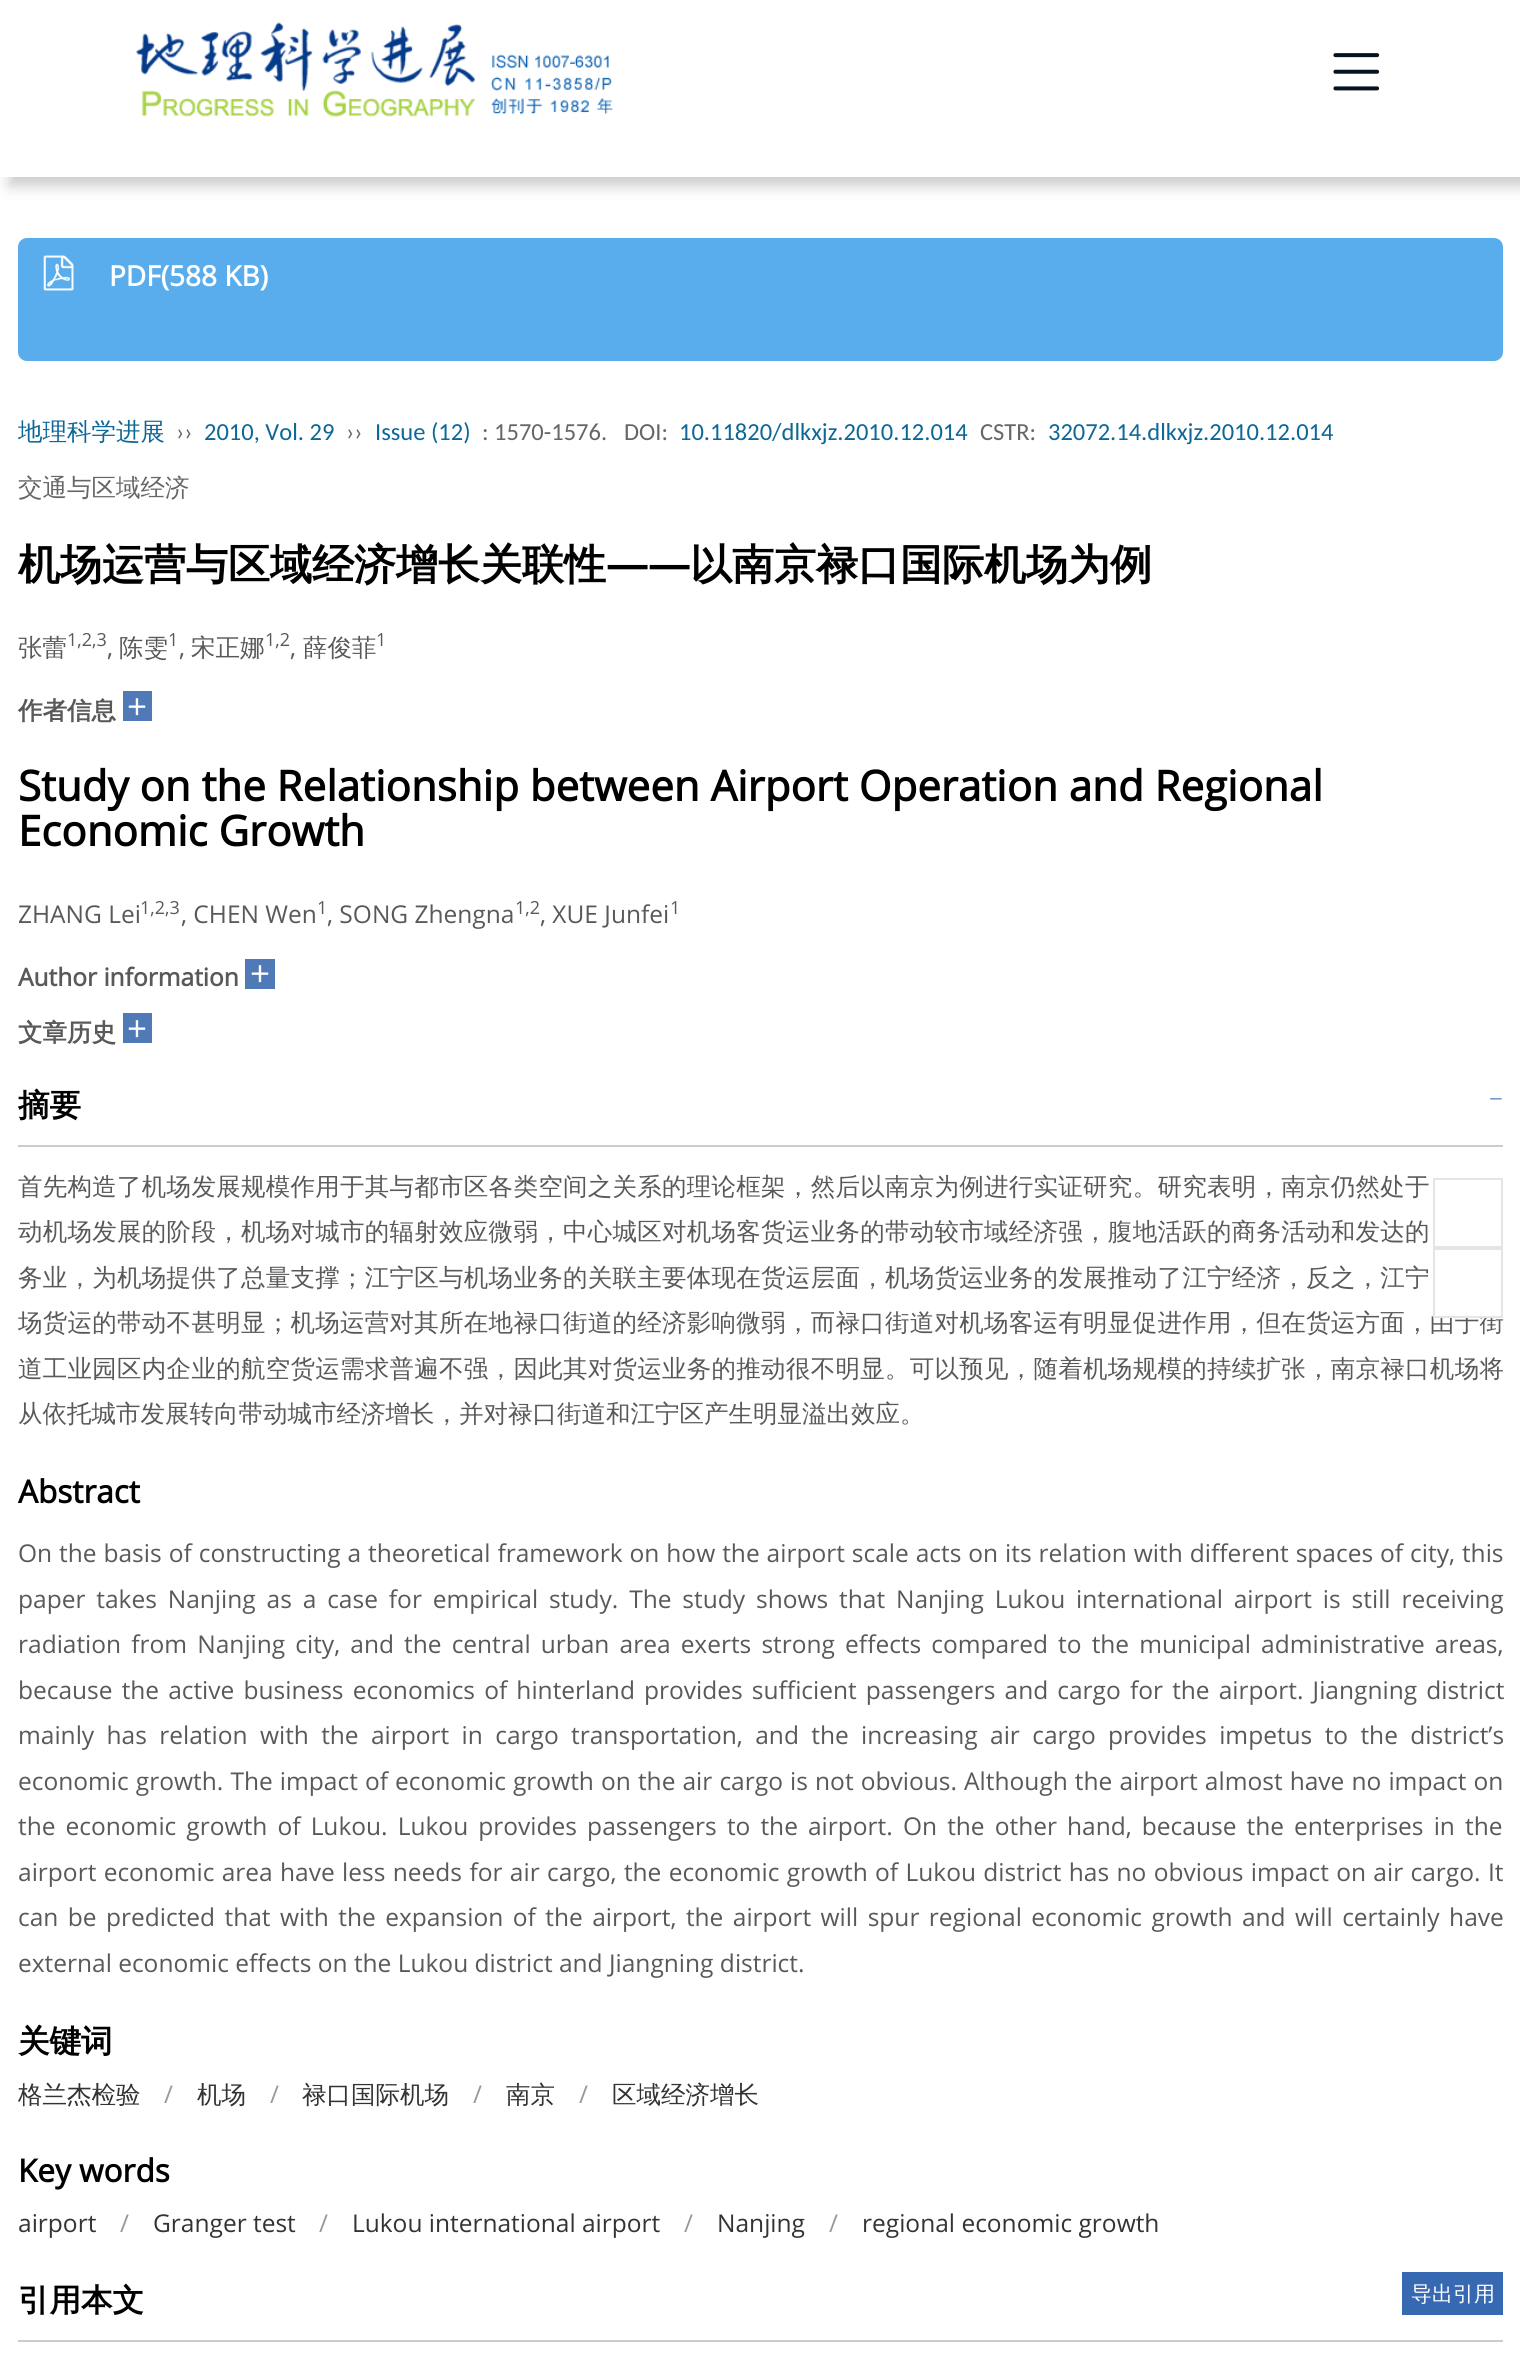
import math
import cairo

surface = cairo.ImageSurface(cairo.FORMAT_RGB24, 1520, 2353)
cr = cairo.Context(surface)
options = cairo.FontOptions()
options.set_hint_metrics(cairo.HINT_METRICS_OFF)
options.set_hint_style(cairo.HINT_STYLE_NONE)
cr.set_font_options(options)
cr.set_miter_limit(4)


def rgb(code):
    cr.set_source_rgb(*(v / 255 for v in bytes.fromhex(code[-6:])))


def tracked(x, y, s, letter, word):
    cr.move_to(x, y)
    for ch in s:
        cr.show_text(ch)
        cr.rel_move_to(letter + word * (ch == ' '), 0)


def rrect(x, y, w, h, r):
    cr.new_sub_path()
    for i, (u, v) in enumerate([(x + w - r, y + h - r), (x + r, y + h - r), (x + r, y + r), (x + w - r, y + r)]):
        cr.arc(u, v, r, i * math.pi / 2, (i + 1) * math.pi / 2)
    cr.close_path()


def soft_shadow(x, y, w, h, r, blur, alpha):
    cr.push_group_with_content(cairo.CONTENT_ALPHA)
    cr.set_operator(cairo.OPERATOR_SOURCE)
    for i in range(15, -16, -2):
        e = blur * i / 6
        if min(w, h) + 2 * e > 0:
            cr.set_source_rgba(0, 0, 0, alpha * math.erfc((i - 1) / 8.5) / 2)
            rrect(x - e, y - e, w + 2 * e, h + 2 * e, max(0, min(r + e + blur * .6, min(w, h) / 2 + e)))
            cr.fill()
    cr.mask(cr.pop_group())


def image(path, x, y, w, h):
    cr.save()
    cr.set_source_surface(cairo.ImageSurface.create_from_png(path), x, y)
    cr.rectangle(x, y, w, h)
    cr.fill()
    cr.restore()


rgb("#ffffff")
cr.paint()
cr.save()
cr.set_fill_rule(cairo.FILL_RULE_EVEN_ODD)
cr.new_path()
cr.move_to(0, 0)
cr.line_to(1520, 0)
cr.line_to(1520, 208)
cr.line_to(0, 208)
cr.close_path()
cr.move_to(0, 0)
cr.line_to(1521, 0)
cr.line_to(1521, 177)
cr.line_to(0, 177)
cr.close_path()
cr.clip()
rgb("#000000")
soft_shadow(9, 9, 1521, 177, 0, 7, 0.2)
cr.restore()
image("img/1.png", 136, 22, 477, 95)
image("img/2.png", 1333, 53, 47, 38)
rgb("#5aadec")
rrect(18, 238, 1485, 123, 9)
cr.fill()
image("img/3.png", 43, 255, 31, 36)
for x, y, w, h, color in [
    (123, 691, 29, 30, "#5079b7"),
    (245, 959, 30, 30, "#5079b7"),
    (123, 1013, 29, 30, "#5079b7"),
    (18, 1145, 1485, 2, "#cccccc"),
    (18, 2340, 1485, 2, "#cccccc"),
    (1402, 2272, 101, 43, "#3769b3"),
]:
    rgb(color)
    cr.rectangle(x, y, w, h)
    cr.fill()
cr.rectangle(1434, 1179, 68, 68)
rgb("#e2e6e8")
cr.stroke()
cr.select_font_face("Open Sans", cairo.FONT_SLANT_NORMAL, cairo.FONT_WEIGHT_BOLD)
cr.set_font_size(28)
rgb("#ffffff")
cr.move_to(109, 286)
cr.show_text("PDF(588 KB)")
cr.select_font_face("WenQuanYi Zen Hei Medium")
cr.set_font_size(24.5)
rgb("#0d6797")
cr.move_to(18, 440)
cr.show_text("地理科学进展")
cr.select_font_face("Carlito")
rgb("#666666")
cr.move_to(176, 440)
cr.show_text("››")
rgb("#0d6797")
cr.move_to(204, 440)
cr.show_text("2010, Vol. 29")
rgb("#666666")
cr.move_to(346, 440)
cr.show_text("››")
rgb("#0d6797")
cr.move_to(375, 440)
cr.show_text("Issue (12)")
rgb("#666666")
cr.move_to(482, 440)
cr.show_text(": 1570-1576.")
cr.move_to(624, 440)
cr.show_text("DOI:")
rgb("#0d6797")
cr.move_to(679, 440)
cr.show_text("10.11820/dlkxjz.2010.12.014")
rgb("#666666")
cr.move_to(980, 440)
cr.show_text("CSTR:")
rgb("#0d6797")
cr.move_to(1048, 440)
cr.show_text("32072.14.dlkxjz.2010.12.014")
cr.select_font_face("WenQuanYi Zen Hei Medium")
rgb("#666666")
cr.move_to(18, 496)
cr.show_text("交通与区域经济")
cr.select_font_face("WenQuanYi Zen Hei", cairo.FONT_SLANT_NORMAL, cairo.FONT_WEIGHT_BOLD)
cr.set_font_size(42)
rgb("#000000")
cr.move_to(18, 579)
cr.show_text("机场运营与区域经济增长关联性")
cr.select_font_face("Open Sans", cairo.FONT_SLANT_NORMAL, cairo.FONT_WEIGHT_BOLD)
cr.move_to(606, 579)
cr.show_text("——")
cr.select_font_face("WenQuanYi Zen Hei", cairo.FONT_SLANT_NORMAL, cairo.FONT_WEIGHT_BOLD)
cr.move_to(690, 579)
cr.show_text("以南京禄口国际机场为例")
cr.select_font_face("WenQuanYi Zen Hei Medium")
cr.set_font_size(24.5)
rgb("#595959")
cr.move_to(18, 656)
cr.show_text("张蕾")
cr.select_font_face("Open Sans")
cr.set_font_size(18)
cr.move_to(67, 646)
cr.show_text("1,2,3")
cr.set_font_size(24.5)
cr.move_to(107, 656)
cr.show_text(",")
cr.select_font_face("WenQuanYi Zen Hei Medium")
cr.move_to(119, 656)
cr.show_text("陈雯")
cr.select_font_face("Open Sans")
cr.set_font_size(18)
cr.move_to(168, 646)
cr.show_text("1")
cr.set_font_size(24.5)
cr.move_to(179, 656)
cr.show_text(",")
cr.select_font_face("WenQuanYi Zen Hei Medium")
cr.move_to(191, 656)
cr.show_text("宋正娜")
cr.select_font_face("Open Sans")
cr.set_font_size(18)
cr.move_to(265, 646)
cr.show_text("1,2")
cr.set_font_size(24.5)
cr.move_to(290, 656)
cr.show_text(",")
cr.select_font_face("WenQuanYi Zen Hei Medium")
cr.move_to(303, 656)
cr.show_text("薛俊菲")
cr.select_font_face("Open Sans")
cr.set_font_size(18)
cr.move_to(376, 646)
cr.show_text("1")
cr.select_font_face("WenQuanYi Zen Hei", cairo.FONT_SLANT_NORMAL, cairo.FONT_WEIGHT_BOLD)
cr.set_font_size(24.5)
cr.move_to(18, 719)
cr.show_text("作者信息")
cr.select_font_face("Open Sans")
cr.set_font_size(35)
rgb("#ffffff")
cr.move_to(127, 719)
cr.show_text("+")
cr.select_font_face("Open Sans", cairo.FONT_SLANT_NORMAL, cairo.FONT_WEIGHT_BOLD)
cr.set_font_size(42)
rgb("#000000")
cr.move_to(18, 801)
cr.show_text("Study on the Relationship between Airport Operation and Regional")
cr.move_to(18, 846)
cr.show_text("Economic Growth")
cr.select_font_face("Open Sans")
cr.set_font_size(24.5)
rgb("#595959")
cr.move_to(18, 923)
cr.show_text("ZHANG Lei")
cr.set_font_size(18)
cr.move_to(140, 914)
cr.show_text("1,2,3")
cr.set_font_size(24.5)
cr.move_to(181, 923)
cr.show_text(", CHEN Wen")
cr.set_font_size(18)
cr.move_to(317, 914)
cr.show_text("1")
cr.set_font_size(24.5)
cr.move_to(327, 923)
cr.show_text(", SONG Zhengna")
cr.set_font_size(18)
cr.move_to(515, 914)
cr.show_text("1,2")
cr.set_font_size(24.5)
cr.move_to(540, 923)
cr.show_text(", XUE Junfei")
cr.set_font_size(18)
cr.move_to(670, 914)
cr.show_text("1")
cr.select_font_face("Open Sans", cairo.FONT_SLANT_NORMAL, cairo.FONT_WEIGHT_BOLD)
cr.set_font_size(24.5)
cr.move_to(18, 986)
cr.show_text("Author information")
cr.select_font_face("Open Sans")
cr.set_font_size(35)
rgb("#ffffff")
cr.move_to(250, 986)
cr.show_text("+")
cr.select_font_face("WenQuanYi Zen Hei", cairo.FONT_SLANT_NORMAL, cairo.FONT_WEIGHT_BOLD)
cr.set_font_size(24.5)
rgb("#595959")
cr.move_to(18, 1041)
cr.show_text("文章历史")
cr.select_font_face("Open Sans")
cr.set_font_size(35)
rgb("#ffffff")
cr.move_to(127, 1041)
cr.show_text("+")
cr.select_font_face("WenQuanYi Zen Hei", cairo.FONT_SLANT_NORMAL, cairo.FONT_WEIGHT_BOLD)
cr.set_font_size(31.5)
rgb("#000000")
cr.move_to(18, 1116)
cr.show_text("摘要")
cr.select_font_face("Liberation Serif")
cr.set_font_size(24.5)
rgb("#5079b7")
cr.move_to(1489, 1107)
cr.show_text("−")
cr.select_font_face("WenQuanYi Zen Hei Medium")
rgb("#595959")
for x, y, s in [
    (18, 1195, "首先构造了机场发展规模作用于其与都市区各类空间之关系的理论框架，然后以南京为例进行实证研究。研究表明，南京仍然处于"),
    (18, 1240, "动机场发展的阶段，机场对城市的辐射效应微弱，中心城区对机场客货运业务的带动较市域经济强，腹地活跃的商务活动和发达的"),
    (18, 1286, "务业，为机场提供了总量支撑；江宁区与机场业务的关联主要体现在货运层面，机场货运业务的发展推动了江宁经济，反之，江宁"),
]:
    tracked(x, y, s, 0.27, 0)
cr.save()
cr.rectangle(18, 1076, 1485, 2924)
cr.clip()
tracked(18, 1331, "场货运的带动不甚明显；机场运营对其所在地禄口街道的经济影响微弱，而禄口街道对机场客运有明显促进作用，但在货运方面，由于街", 0.27, 0)
cr.restore()
tracked(18, 1377, "道工业园区内企业的航空货运需求普遍不强，因此其对货运业务的推动很不明显。可以预见，随着机场规模的持续扩张，南京禄口机场将", 0.27, 0)
cr.move_to(18, 1422)
cr.show_text("从依托城市发展转向带动城市经济增长，并对禄口街道和江宁区产生明显溢出效应。")
cr.select_font_face("Open Sans", cairo.FONT_SLANT_NORMAL, cairo.FONT_WEIGHT_BOLD)
cr.set_font_size(31.5)
rgb("#000000")
cr.move_to(18, 1503)
cr.show_text("Abstract")
cr.select_font_face("Open Sans")
cr.set_font_size(24.5)
rgb("#595959")
tracked(18, 1562, "On the basis of constructing a theoretical framework on how the airport scale acts on its relation with different spaces of city, this", 0, 0.6)
tracked(18, 1608, "paper takes Nanjing as a case for empirical study. The study shows that Nanjing Lukou international airport is still receiving", 0, 4.5)
tracked(18, 1653, "radiation from Nanjing city, and the central urban area exerts strong effects compared to the municipal administrative areas,", 0, 3.75)
tracked(18, 1699, "because the active business economics of hinterland provides sufficient passengers and cargo for the airport. Jiangning district", 0, 2.75)
tracked(18, 1744, "mainly has relation with the airport in cargo transportation, and the increasing air cargo provides impetus to the district’s", 0, 6)
tracked(18, 1790, "economic growth. The impact of economic growth on the air cargo is not obvious. Although the airport almost have no impact on", 0, 0.75)
tracked(18, 1835, "the economic growth of Lukou. Lukou provides passengers to the airport. On the other hand, because the enterprises in the", 0, 3.75)
tracked(18, 1881, "airport economic area have less needs for air cargo, the economic growth of Lukou district has no obvious impact on air cargo. It", 0, 1)
tracked(18, 1926, "can be predicted that with the expansion of the airport, the airport will spur regional economic growth and will certainly have", 0, 3.1)
cr.move_to(18, 1972)
cr.show_text("external economic effects on the Lukou district and Jiangning district.")
cr.select_font_face("WenQuanYi Zen Hei", cairo.FONT_SLANT_NORMAL, cairo.FONT_WEIGHT_BOLD)
cr.set_font_size(31.5)
rgb("#000000")
cr.move_to(18, 2052)
cr.show_text("关键词")
cr.select_font_face("WenQuanYi Zen Hei Medium")
cr.set_font_size(24.5)
rgb("#333333")
cr.move_to(18, 2103)
cr.show_text("格兰杰检验")
cr.select_font_face("Open Sans")
rgb("#999999")
cr.move_to(164, 2103)
cr.show_text("/")
cr.select_font_face("WenQuanYi Zen Hei Medium")
rgb("#333333")
cr.move_to(197, 2103)
cr.show_text("机场")
cr.select_font_face("Open Sans")
rgb("#999999")
cr.move_to(270, 2103)
cr.show_text("/")
cr.select_font_face("WenQuanYi Zen Hei Medium")
rgb("#333333")
cr.move_to(302, 2103)
cr.show_text("禄口国际机场")
cr.select_font_face("Open Sans")
rgb("#999999")
cr.move_to(473, 2103)
cr.show_text("/")
cr.select_font_face("WenQuanYi Zen Hei Medium")
rgb("#333333")
cr.move_to(506, 2103)
cr.show_text("南京")
cr.select_font_face("Open Sans")
rgb("#999999")
cr.move_to(579, 2103)
cr.show_text("/")
cr.select_font_face("WenQuanYi Zen Hei Medium")
rgb("#333333")
cr.move_to(612, 2103)
cr.show_text("区域经济增长")
cr.select_font_face("Open Sans", cairo.FONT_SLANT_NORMAL, cairo.FONT_WEIGHT_BOLD)
cr.set_font_size(31.5)
rgb("#000000")
cr.move_to(18, 2182)
cr.show_text("Key words")
cr.select_font_face("Open Sans")
cr.set_font_size(24.5)
rgb("#333333")
cr.move_to(18, 2232)
cr.show_text("airport")
rgb("#999999")
cr.move_to(120, 2232)
cr.show_text("/")
rgb("#333333")
cr.move_to(153, 2232)
cr.show_text("Granger test")
rgb("#999999")
cr.move_to(319, 2232)
cr.show_text("/")
rgb("#333333")
cr.move_to(352, 2232)
cr.show_text("Lukou international airport")
rgb("#999999")
cr.move_to(684, 2232)
cr.show_text("/")
rgb("#333333")
cr.move_to(717, 2232)
cr.show_text("Nanjing")
rgb("#999999")
cr.move_to(829, 2232)
cr.show_text("/")
rgb("#333333")
cr.move_to(862, 2232)
cr.show_text("regional economic growth")
cr.select_font_face("WenQuanYi Zen Hei", cairo.FONT_SLANT_NORMAL, cairo.FONT_WEIGHT_BOLD)
cr.set_font_size(31.5)
rgb("#000000")
cr.move_to(18, 2311)
cr.show_text("引用本文")
cr.select_font_face("WenQuanYi Zen Hei Medium")
cr.set_font_size(21)
rgb("#ffffff")
cr.move_to(1411, 2301)
cr.show_text("导出引用")
cr.rectangle(1439, 1310, 62, 6)
cr.fill()
cr.rectangle(1434, 1249, 68, 68)
rgb("#e2e6e8")
cr.stroke()
surface.write_to_png("page.png")
